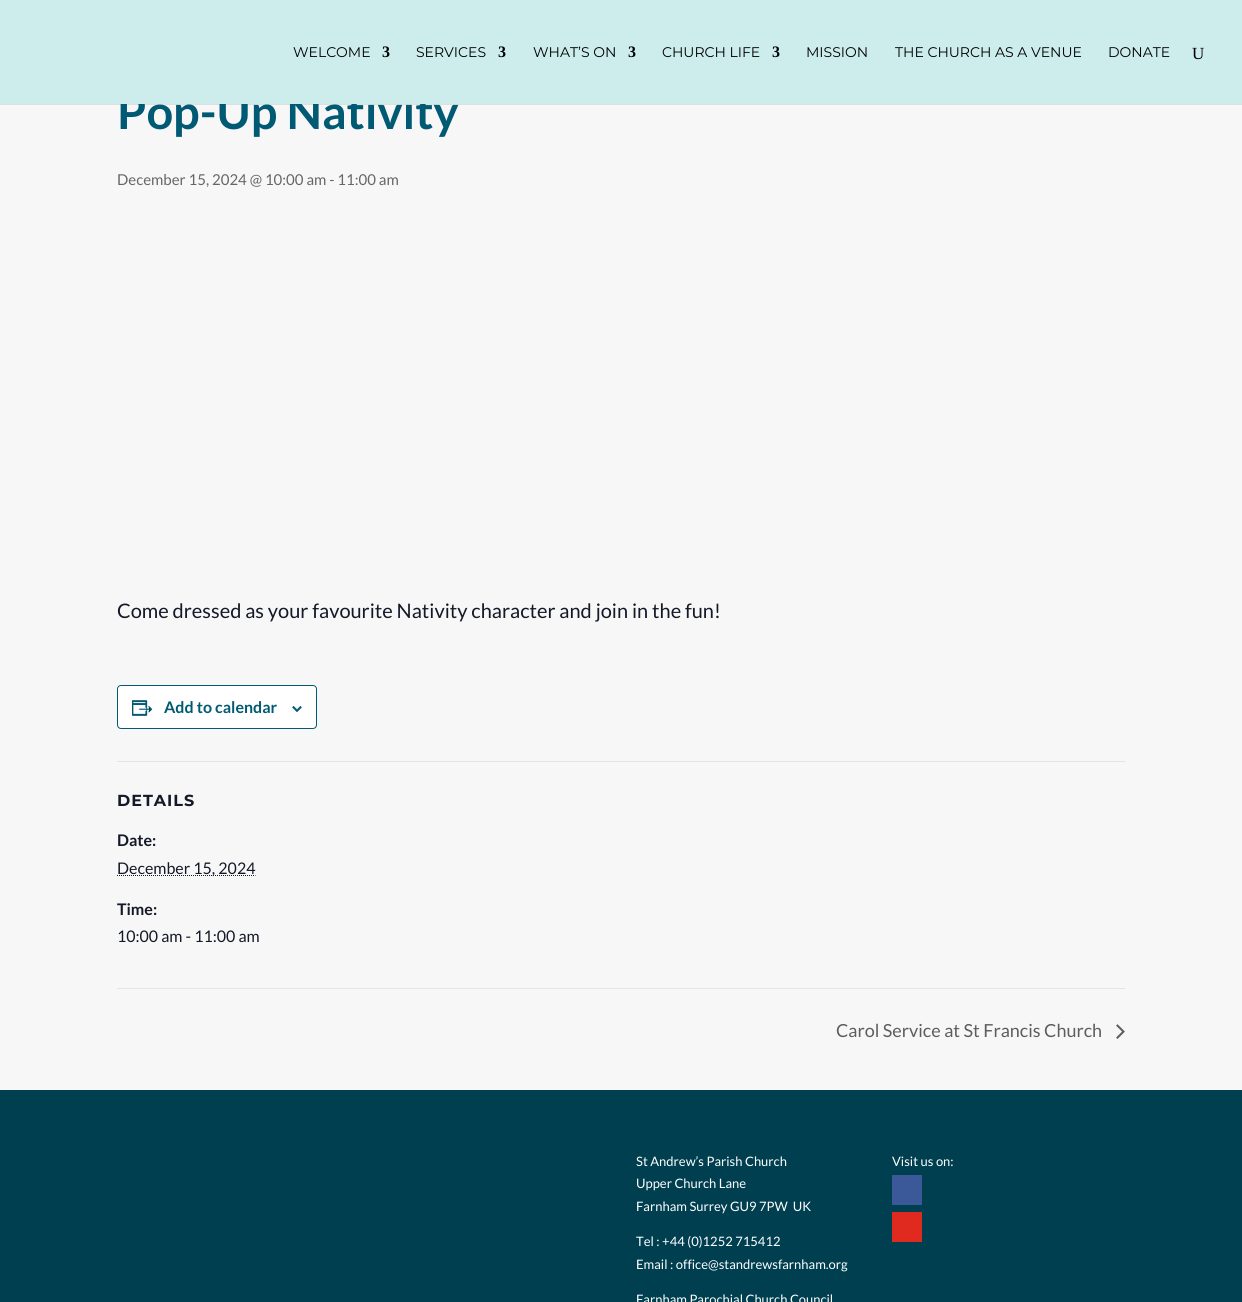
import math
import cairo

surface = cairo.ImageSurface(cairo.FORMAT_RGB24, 1242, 1302)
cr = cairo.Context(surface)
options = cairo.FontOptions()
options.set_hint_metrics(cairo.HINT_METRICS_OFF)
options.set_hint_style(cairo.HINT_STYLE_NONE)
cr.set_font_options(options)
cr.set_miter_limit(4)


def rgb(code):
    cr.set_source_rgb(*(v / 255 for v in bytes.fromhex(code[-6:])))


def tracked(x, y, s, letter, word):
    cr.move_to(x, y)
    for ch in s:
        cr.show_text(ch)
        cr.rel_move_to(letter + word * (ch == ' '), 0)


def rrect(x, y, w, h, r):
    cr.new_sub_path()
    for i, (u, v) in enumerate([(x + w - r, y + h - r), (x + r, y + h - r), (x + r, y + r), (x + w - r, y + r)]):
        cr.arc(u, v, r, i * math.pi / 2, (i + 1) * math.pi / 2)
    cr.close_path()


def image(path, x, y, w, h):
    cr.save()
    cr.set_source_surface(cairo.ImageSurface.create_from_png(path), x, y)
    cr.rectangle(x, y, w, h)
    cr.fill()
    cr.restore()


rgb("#f7f7f7")
cr.paint()
cr.set_source_rgba(0, 0, 0, 0.1)
cr.rectangle(0, 104, 1242, 1)
cr.fill()
rgb("#ffffff")
rrect(117.5, 685.5, 199, 43, 3.5)
cr.fill_preserve()
rgb("#005a73")
cr.set_line_width(1)
cr.stroke()
image("img/1.png", 132, 700, 21, 16)
image("img/2.png", 292, 706, 10, 6)
rgb("#e4e4e4")
cr.rectangle(117, 761, 1008, 1)
cr.fill()
cr.new_path()
cr.move_to(117, 875.5)
cr.line_to(255.5, 875.5)
rgb("#141827")
cr.set_dash([1, 1])
cr.stroke()
rgb("#e4e4e4")
cr.rectangle(117, 988, 1008, 1)
cr.fill()
image("img/3.png", 1116, 1024, 9, 15)
for x, y, w, h, color in [
    (0, 1090, 1242, 212, "#003f50"),
    (892, 1175, 30, 30, "#3b5998"),
    (892, 1212, 30, 30, "#e02a20"),
]:
    rgb(color)
    cr.rectangle(x, y, w, h)
    cr.fill()
cr.select_font_face("Lato", cairo.FONT_SLANT_NORMAL, cairo.FONT_WEIGHT_BOLD)
cr.set_font_size(47)
rgb("#005a73")
cr.move_to(117, 129)
cr.show_text("Pop-Up Nativity")
rgb("#cdecec")
cr.rectangle(0, 0, 1242, 104)
cr.fill()
cr.select_font_face("Liberation Serif")
cr.set_font_size(17)
rgb("#000000")
cr.move_to(1192, 59)
cr.show_text("U")
cr.select_font_face("Montserrat")
cr.set_font_size(14)
for x, y, s in [
    (1108, 57, "DONATE"),
    (895, 57, "THE CHURCH AS A VENUE"),
    (806, 57, "MISSION"),
]:
    cr.move_to(x, y)
    cr.show_text(s)
cr.select_font_face("Liberation Serif", cairo.FONT_SLANT_NORMAL, cairo.FONT_WEIGHT_BOLD)
cr.set_font_size(16)
cr.move_to(772, 57)
cr.show_text("3")
cr.select_font_face("Montserrat")
cr.set_font_size(14)
cr.move_to(662, 57)
cr.show_text("CHURCH LIFE")
cr.select_font_face("Liberation Serif", cairo.FONT_SLANT_NORMAL, cairo.FONT_WEIGHT_BOLD)
cr.set_font_size(16)
cr.move_to(628, 57)
cr.show_text("3")
cr.select_font_face("Montserrat")
cr.set_font_size(14)
cr.move_to(533, 57)
cr.show_text("WHAT’S ON")
cr.select_font_face("Liberation Serif", cairo.FONT_SLANT_NORMAL, cairo.FONT_WEIGHT_BOLD)
cr.set_font_size(16)
cr.move_to(498, 57)
cr.show_text("3")
cr.select_font_face("Montserrat")
cr.set_font_size(14)
cr.move_to(416, 57)
cr.show_text("SERVICES")
cr.select_font_face("Liberation Serif", cairo.FONT_SLANT_NORMAL, cairo.FONT_WEIGHT_BOLD)
cr.set_font_size(16)
cr.move_to(382, 57)
cr.show_text("3")
cr.select_font_face("Montserrat")
cr.set_font_size(14)
cr.move_to(293, 57)
cr.show_text("WELCOME")
cr.select_font_face("Lato")
cr.set_font_size(15)
rgb("#666666")
cr.move_to(117, 185)
cr.show_text("December 15, 2024 @ 10:00 am - 11:00 am")
cr.set_font_size(20)
rgb("#141827")
cr.move_to(117, 618)
cr.show_text("Come dressed as your favourite Nativity character and join in the fun!")
cr.select_font_face("Lato", cairo.FONT_SLANT_NORMAL, cairo.FONT_WEIGHT_BOLD)
cr.set_font_size(16)
rgb("#005a73")
cr.move_to(164, 713)
cr.show_text("Add to calendar")
cr.select_font_face("Montserrat", cairo.FONT_SLANT_NORMAL, cairo.FONT_WEIGHT_BOLD)
rgb("#141827")
tracked(117, 806, "DETAILS", 1, 0)
cr.select_font_face("Lato", cairo.FONT_SLANT_NORMAL, cairo.FONT_WEIGHT_BOLD)
cr.move_to(117, 846)
cr.show_text("Date:")
cr.select_font_face("Lato")
cr.move_to(117, 874)
cr.show_text("December 15, 2024")
cr.select_font_face("Lato", cairo.FONT_SLANT_NORMAL, cairo.FONT_WEIGHT_BOLD)
cr.move_to(117, 915)
cr.show_text("Time:")
cr.select_font_face("Lato")
cr.move_to(117, 942)
cr.show_text("10:00 am - 11:00 am")
cr.set_font_size(18)
rgb("#5d5d5d")
cr.move_to(836, 1037)
cr.show_text("Carol Service at St Francis Church")
cr.set_font_size(13)
rgb("#ffffff")
for x, y, s in [
    (636, 1166, "St Andrew’s Parish Church"),
    (636, 1188, "Upper Church Lane"),
    (636, 1211, "Farnham Surrey GU9 7PW  UK"),
    (636, 1246, "Tel : +44 (0)1252 715412"),
    (636, 1269, "Email : office@standrewsfarnham.org"),
    (636, 1304, "Farnham Parochial Church Council"),
    (892, 1166, "Visit us on:"),
]:
    cr.move_to(x, y)
    cr.show_text(s)
surface.write_to_png("page.png")
